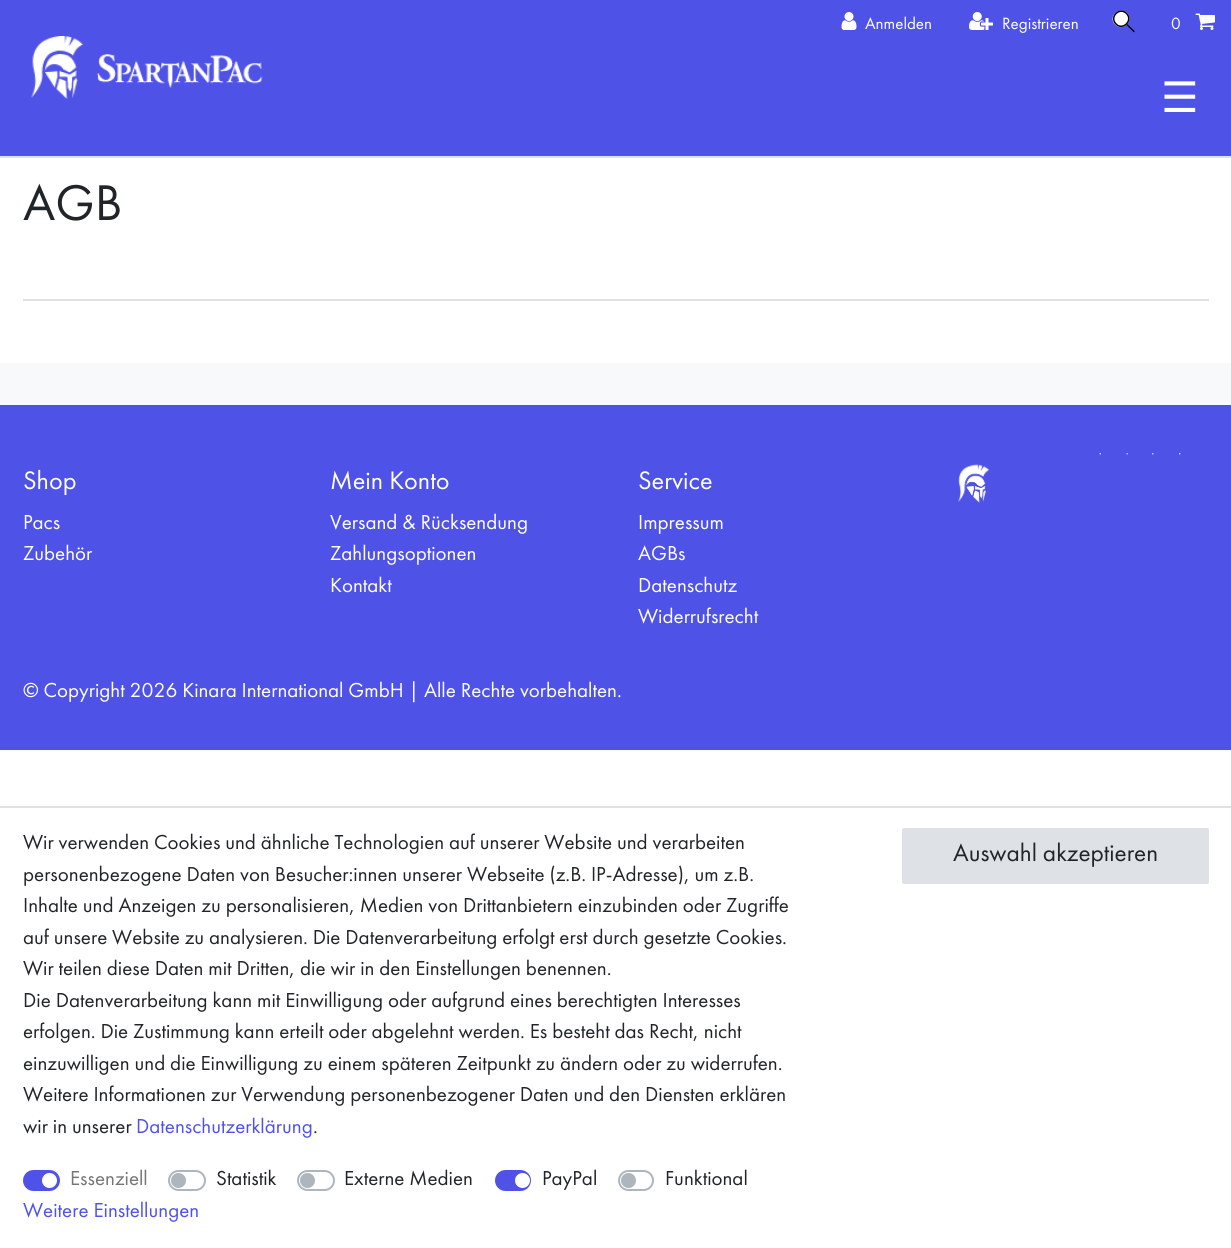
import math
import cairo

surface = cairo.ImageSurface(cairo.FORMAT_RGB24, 1231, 1248)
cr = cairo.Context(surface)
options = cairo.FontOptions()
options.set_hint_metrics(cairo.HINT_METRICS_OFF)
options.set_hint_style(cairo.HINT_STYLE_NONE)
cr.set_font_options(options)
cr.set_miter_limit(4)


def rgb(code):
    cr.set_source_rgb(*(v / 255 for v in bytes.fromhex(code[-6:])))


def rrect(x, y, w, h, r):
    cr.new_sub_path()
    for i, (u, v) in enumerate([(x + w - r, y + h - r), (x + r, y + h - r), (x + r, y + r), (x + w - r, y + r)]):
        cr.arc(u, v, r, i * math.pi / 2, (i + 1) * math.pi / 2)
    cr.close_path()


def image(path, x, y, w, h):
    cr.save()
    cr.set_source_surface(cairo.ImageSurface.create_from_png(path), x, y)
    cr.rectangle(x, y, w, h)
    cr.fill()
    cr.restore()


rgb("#ffffff")
cr.paint()
rgb("#4f52e7")
cr.rectangle(0, 0, 1231, 156)
cr.fill()
image("img/1.png", 841, 12, 16, 18)
image("img/2.png", 969, 12, 24, 18)
rgb("#000000")
cr.new_path()
cr.move_to(1133.5, 32)
cr.line_to(1118.5, 17)
cr.line_to(1118, 16.5)
cr.curve_to(1118.5, 16, 1119, 16, 1119, 16)
cr.line_to(1134.5, 31)
cr.curve_to(1135, 32, 1134, 32.5, 1133.5, 32)
cr.close_path()
cr.fill()
rgb("#ffffff")
cr.new_path()
cr.move_to(1115, 24.5)
cr.curve_to(1107.5, 17, 1119, 5.5, 1127, 13)
cr.curve_to(1134.5, 20.5, 1123, 32.5, 1115, 24.5)
cr.close_path()
cr.fill()
cr.new_path()
cr.move_to(1116, 24)
cr.curve_to(1109, 17, 1119.5, 6.5, 1126.5, 13.5)
cr.curve_to(1133.5, 20.5, 1122.5, 31, 1116, 24)
cr.close_path()
rgb("#000000")
cr.set_line_width(1.5)
cr.stroke()
image("img/3.png", 1195, 13, 20, 17)
rgb("#dee2e6")
cr.rectangle(0, 156, 1231, 2)
cr.fill()
image("img/4.png", 31, 36, 232, 63)
for x, y, w, h, color in [
    (23, 299, 1186, 2, "#dee2e6"),
    (0, 363, 1231, 42, "#f8f9fa"),
    (0, 405, 1231, 345, "#4f52e7"),
]:
    rgb(color)
    cr.rectangle(x, y, w, h)
    cr.fill()
image("img/5.png", 1099, 453, 2, 2)
image("img/6.png", 1126, 453, 2, 2)
image("img/7.png", 1152, 453, 2, 2)
image("img/8.png", 1179, 453, 2, 2)
image("img/9.png", 958, 464, 32, 39)
rgb("#dee2e6")
cr.rectangle(0, 806, 1231, 2)
cr.fill()
rgb("#4f52e7")
rrect(24, 1171, 35, 19, 9.5)
cr.fill_preserve()
cr.set_line_width(2)
cr.stroke()
rgb("#ffffff")
cr.arc(49.5, 1180.5, 7.5, 0, 2 * math.pi)
cr.fill()
rrect(169, 1171, 36, 19, 9.5)
rgb("#adb5bd")
cr.stroke()
cr.arc(178.5, 1180.5, 7.5, 0, 2 * math.pi)
cr.fill()
rrect(298, 1171, 36, 19, 9.5)
cr.stroke()
cr.arc(307.5, 1180.5, 7.5, 0, 2 * math.pi)
cr.fill()
rgb("#4f52e7")
rrect(496, 1171, 34, 19, 9.5)
cr.fill_preserve()
cr.stroke()
rgb("#ffffff")
cr.arc(522.5, 1180.5, 7.5, 0, 2 * math.pi)
cr.fill()
rrect(619, 1171, 34, 19, 9.5)
rgb("#adb5bd")
cr.stroke()
cr.arc(628.5, 1180.5, 7.5, 0, 2 * math.pi)
cr.fill()
rgb("#dee2e6")
rrect(903, 829, 305, 54, 1)
cr.fill_preserve()
cr.stroke()
cr.select_font_face("Futura PT")
cr.set_font_size(17)
rgb("#ffffff")
for x, y, s in [
    (865, 29, "Anmelden"),
    (1002, 29, "Registrieren"),
    (1171, 29, "0"),
]:
    cr.move_to(x, y)
    cr.show_text(s)
cr.select_font_face("DejaVu Sans")
cr.set_font_size(42)
cr.move_to(1161, 112)
cr.show_text("☰")
cr.select_font_face("Futura PT")
cr.set_font_size(52)
rgb("#212529")
cr.move_to(23, 220)
cr.show_text("AGB")
cr.set_font_size(26.25)
rgb("#ffffff")
cr.move_to(23, 489)
cr.show_text("Shop")
cr.set_font_size(21)
cr.move_to(23, 529)
cr.show_text("Pacs")
cr.move_to(23, 560)
cr.show_text("Zubehör")
cr.set_font_size(26.25)
cr.move_to(330, 489)
cr.show_text("Mein Konto")
cr.set_font_size(21)
for x, y, s in [
    (330, 529, "Versand & Rücksendung"),
    (330, 560, "Zahlungsoptionen"),
    (330, 592, "Kontakt"),
]:
    cr.move_to(x, y)
    cr.show_text(s)
cr.set_font_size(26.25)
cr.move_to(638, 489)
cr.show_text("Service")
cr.set_font_size(21)
for x, y, s in [
    (638, 529, "Impressum"),
    (638, 560, "AGBs"),
    (638, 592, "Datenschutz"),
    (638, 623, "Widerrufsrecht"),
    (23, 697, "© Copyright 2026 Kinara International GmbH | Alle Rechte vorbehalten."),
]:
    cr.move_to(x, y)
    cr.show_text(s)
rgb("#212529")
for x, y, s in [
    (23, 849, "Wir verwenden Cookies und ähnliche Technologien auf unserer Website und verarbeiten"),
    (23, 881, "personenbezogene Daten von Besucher:innen unserer Webseite (z.B. IP-Adresse), um z.B."),
    (23, 912, "Inhalte und Anzeigen zu personalisieren, Medien von Drittanbietern einzubinden oder Zugriffe"),
    (23, 944, "auf unsere Website zu analysieren. Die Datenverarbeitung erfolgt erst durch gesetzte Cookies."),
    (23, 975, "Wir teilen diese Daten mit Dritten, die wir in den Einstellungen benennen."),
    (23, 1007, "Die Datenverarbeitung kann mit Einwilligung oder aufgrund eines berechtigten Interesses"),
    (23, 1038, "erfolgen. Die Zustimmung kann erteilt oder abgelehnt werden. Es besteht das Recht, nicht"),
    (23, 1070, "einzuwilligen und die Einwilligung zu einem späteren Zeitpunkt zu ändern oder zu widerrufen."),
    (23, 1101, "Weitere Informationen zur Verwendung personenbezogener Daten und den Diensten erklären"),
    (23, 1133, "wir in unserer"),
]:
    cr.move_to(x, y)
    cr.show_text(s)
rgb("#4f52e7")
cr.move_to(136, 1133)
cr.show_text("Datenschutzerklärung")
rgb("#212529")
cr.move_to(313, 1133)
cr.show_text(".")
rgb("#767676")
cr.move_to(70, 1185)
cr.show_text("Essenziell")
rgb("#212529")
for x, y, s in [
    (216, 1185, "Statistik"),
    (344, 1185, "Externe Medien"),
    (542, 1185, "PayPal"),
    (665, 1185, "Funktional"),
]:
    cr.move_to(x, y)
    cr.show_text(s)
rgb("#4f52e7")
cr.move_to(23, 1217)
cr.show_text("Weitere Einstellungen")
cr.set_font_size(25.25)
rgb("#212529")
cr.move_to(953, 861)
cr.show_text("Auswahl akzeptieren")
surface.write_to_png("page.png")
